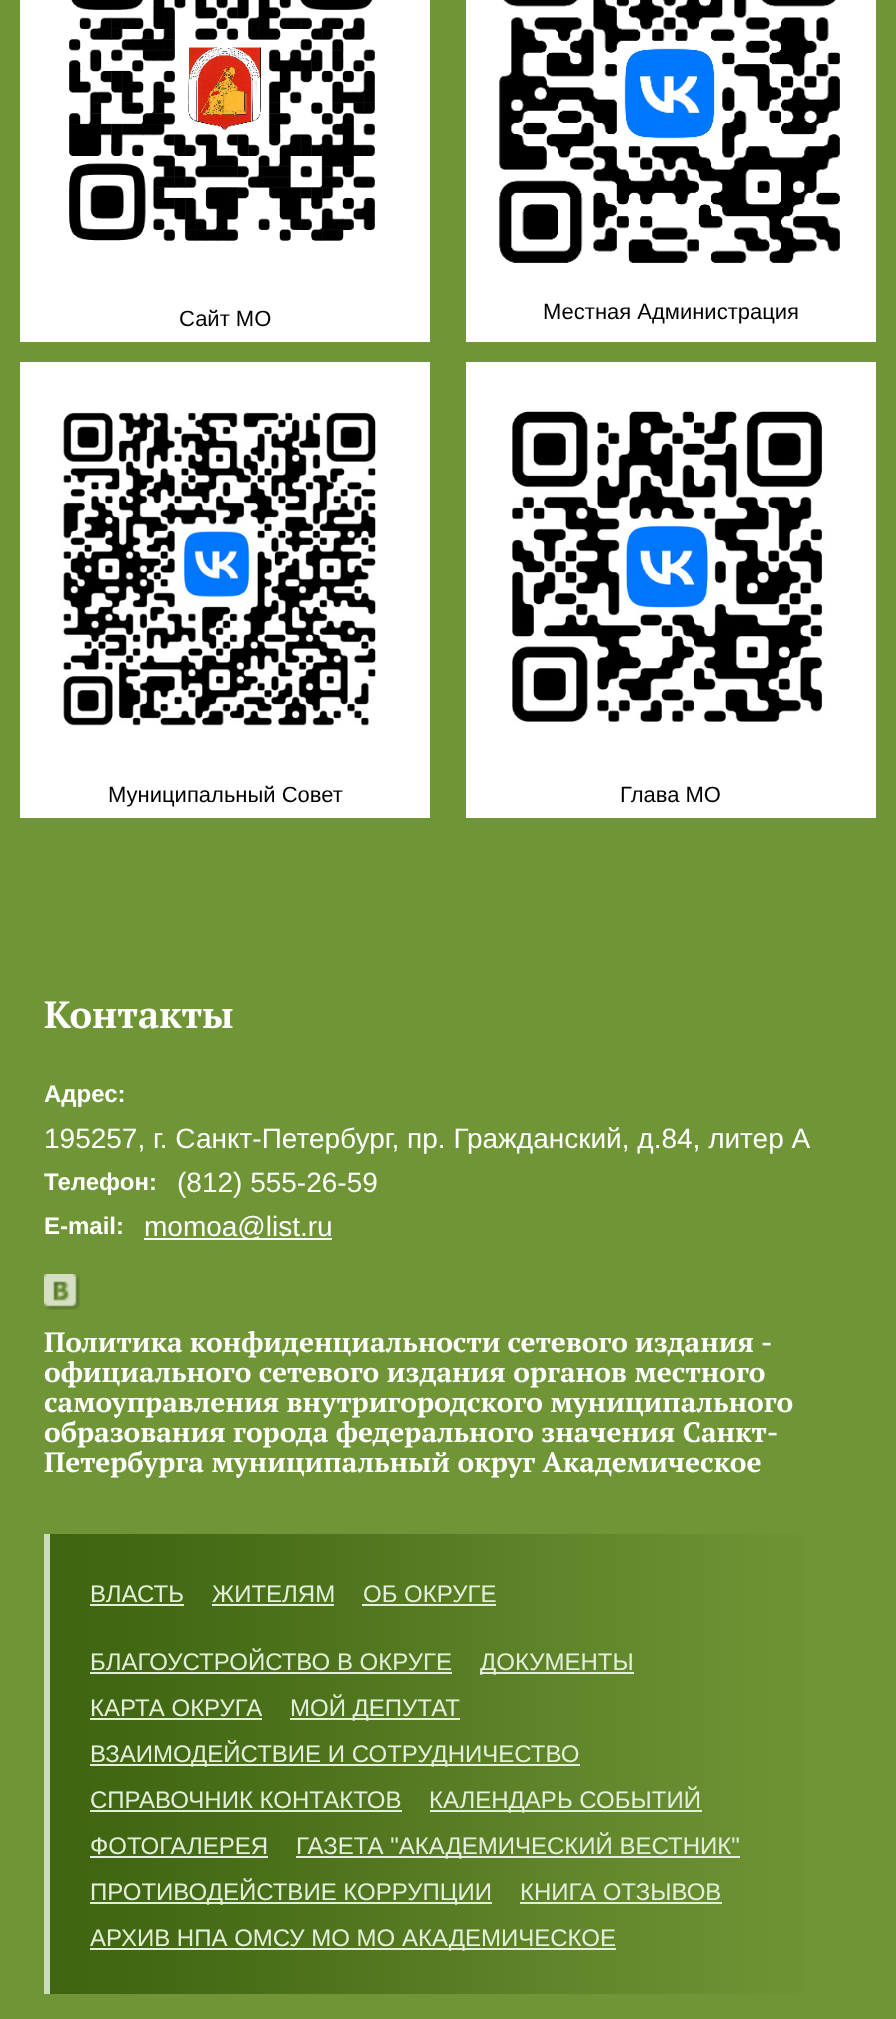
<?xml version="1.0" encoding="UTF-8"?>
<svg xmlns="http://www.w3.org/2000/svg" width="896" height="2019">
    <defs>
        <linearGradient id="g1" gradientUnits="userSpaceOnUse" x1="50" y1="1764" x2="852" y2="1764"><stop offset="0" stop-color="#3F6511"/><stop offset="0.09" stop-color="#416713"/><stop offset="0.2" stop-color="#466C17"/><stop offset="0.34" stop-color="#4E731C"/><stop offset="0.73" stop-color="#658A2E"/><stop offset="0.88" stop-color="#6C9133"/><stop offset="1" stop-color="#709436"/></linearGradient>
    </defs>
    <rect width="100%" height="100%" fill="#6F9536"/>
    <rect x="20" y="0" width="410" height="342" fill="#FFFFFF"/>
    <image x="69" y="0" width="306" height="241" href="img_01.png"/>
    <text x="179" y="326" font-family="Liberation Sans" font-size="22" fill="#000000">Сайт МО</text>
    <rect x="466" y="0" width="410" height="342" fill="#FFFFFF"/>
    <image x="499" y="0" width="341" height="263" href="img_02.png"/>
    <text x="543" y="319" font-family="Liberation Sans" font-size="22" fill="#000000">Местная Администрация</text>
    <rect x="20" y="362" width="410" height="456" fill="#FFFFFF"/>
    <image x="60" y="412" width="316" height="316" href="img_03.png"/>
    <text x="108" y="802" font-family="Liberation Sans" font-size="22" fill="#000000">Муниципальный Совет</text>
    <rect x="466" y="362" width="410" height="456" fill="#FFFFFF"/>
    <image x="512" y="409" width="314" height="313" href="img_04.png"/>
    <text x="620" y="802" font-family="Liberation Sans" font-size="22" fill="#000000">Глава МО</text>
    <text x="44" y="1028" font-family="PT Serif" font-size="38" font-weight="700" fill="#FFFFFF">Контакты</text>
    <text x="44" y="1102" font-family="Liberation Sans" font-size="24" font-weight="700" fill="#FFFFFF">Адрес:</text>
    <text x="44" y="1148" font-family="Liberation Sans" font-size="28" fill="#FFFFFF">195257, г. Санкт-Петербург, пр. Гражданский, д.84, литер А</text>
    <text x="44" y="1190" font-family="Liberation Sans" font-size="24" font-weight="700" fill="#FFFFFF">Телефон:</text>
    <text x="177" y="1192" font-family="Liberation Sans" font-size="28" fill="#FFFFFF">(812) 555-26-59</text>
    <text x="44" y="1234" font-family="Liberation Sans" font-size="24" font-weight="700" fill="#FFFFFF">E-mail:</text>
    <rect x="144" y="1238" width="188" height="2" fill="#FFFFFF"/>
    <text x="144" y="1236" font-family="Liberation Sans" font-size="28" fill="#FFFFFF">momoa@list.ru</text>
    <image x="44" y="1274" width="36" height="36" href="img_05.png"/>
    <text font-family="PT Serif" font-size="28" font-weight="700" fill="#FFFFFF">
        <tspan x="44" y="1352" word-spacing="-0.5">Политика конфиденциальности сетевого издания -</tspan>
        <tspan x="44" y="1382">официального сетевого издания органов местного</tspan>
        <tspan x="44" y="1412">самоуправления внутригородского муниципального</tspan>
        <tspan x="44" y="1442">образования города федерального значения Санкт-</tspan>
        <tspan x="44" y="1472">Петербурга муниципальный округ Академическое</tspan>
    </text>
    <rect x="50" y="1534" width="754" height="460" fill="url(#g1)"/>
    <rect x="44" y="1534" width="6" height="460" fill="#CBDCB8"/>
    <text x="90" y="1602" font-family="Liberation Sans" font-size="24" fill="#E4EFD9">ВЛАСТЬ</text>
    <rect x="90" y="1604" width="94" height="2" fill="#E4EFD9"/>
    <text x="212" y="1602" font-family="Liberation Sans" font-size="24" fill="#E4EFD9">ЖИТЕЛЯМ</text>
    <rect x="212" y="1604" width="122" height="2" fill="#E4EFD9"/>
    <text x="363" y="1602" font-family="Liberation Sans" font-size="24" fill="#E4EFD9">ОБ ОКРУГЕ</text>
    <rect x="362" y="1604" width="134" height="2" fill="#E4EFD9"/>
    <text x="90" y="1670" font-family="Liberation Sans" font-size="24" fill="#E4EFD9">БЛАГОУСТРОЙСТВО В ОКРУГЕ</text>
    <rect x="90" y="1672" width="362" height="2" fill="#E4EFD9"/>
    <rect x="480" y="1672" width="154" height="2" fill="#E4EFD9"/>
    <text x="480" y="1670" font-family="Liberation Sans" font-size="24" fill="#E4EFD9">ДОКУМЕНТЫ</text>
    <text x="90" y="1716" font-family="Liberation Sans" font-size="24" fill="#E4EFD9">КАРТА ОКРУГА</text>
    <rect x="90" y="1718" width="172" height="2" fill="#E4EFD9"/>
    <rect x="290" y="1718" width="170" height="2" fill="#E4EFD9"/>
    <text x="290" y="1716" font-family="Liberation Sans" font-size="24" fill="#E4EFD9">МОЙ ДЕПУТАТ</text>
    <rect x="90" y="1764" width="490" height="2" fill="#E4EFD9"/>
    <text font-family="Liberation Sans" font-size="24" fill="#E4EFD9">
        <tspan x="90" y="1762">ВЗАИМОДЕЙСТВИЕ И СОТРУДНИЧЕСТВО</tspan>
        <tspan x="90" y="1808">СПРАВОЧНИК КОНТАКТОВ</tspan>
    </text>
    <rect x="90" y="1810" width="312" height="2" fill="#E4EFD9"/>
    <rect x="430" y="1810" width="272" height="2" fill="#E4EFD9"/>
    <text x="429" y="1808" font-family="Liberation Sans" font-size="24" fill="#E4EFD9">КАЛЕНДАРЬ СОБЫТИЙ</text>
    <text x="90" y="1854" font-family="Liberation Sans" font-size="24" fill="#E4EFD9">ФОТОГАЛЕРЕЯ</text>
    <rect x="90" y="1856" width="178" height="2" fill="#E4EFD9"/>
    <rect x="296" y="1856" width="444" height="2" fill="#E4EFD9"/>
    <text x="296" y="1854" font-family="Liberation Sans" font-size="24" fill="#E4EFD9">ГАЗЕТА "АКАДЕМИЧЕСКИЙ ВЕСТНИК"</text>
    <rect x="90" y="1902" width="402" height="2" fill="#E4EFD9"/>
    <text x="90" y="1900" font-family="Liberation Sans" font-size="24" fill="#E4EFD9">ПРОТИВОДЕЙСТВИЕ КОРРУПЦИИ</text>
    <text x="520" y="1900" font-family="Liberation Sans" font-size="24" fill="#E4EFD9">КНИГА ОТЗЫВОВ</text>
    <rect x="520" y="1902" width="202" height="2" fill="#E4EFD9"/>
    <rect x="90" y="1948" width="526" height="2" fill="#E4EFD9"/>
    <text x="90" y="1946" font-family="Liberation Sans" font-size="24" fill="#E4EFD9">АРХИВ НПА ОМСУ МО МО АКАДЕМИЧЕСКОЕ</text>
</svg>
